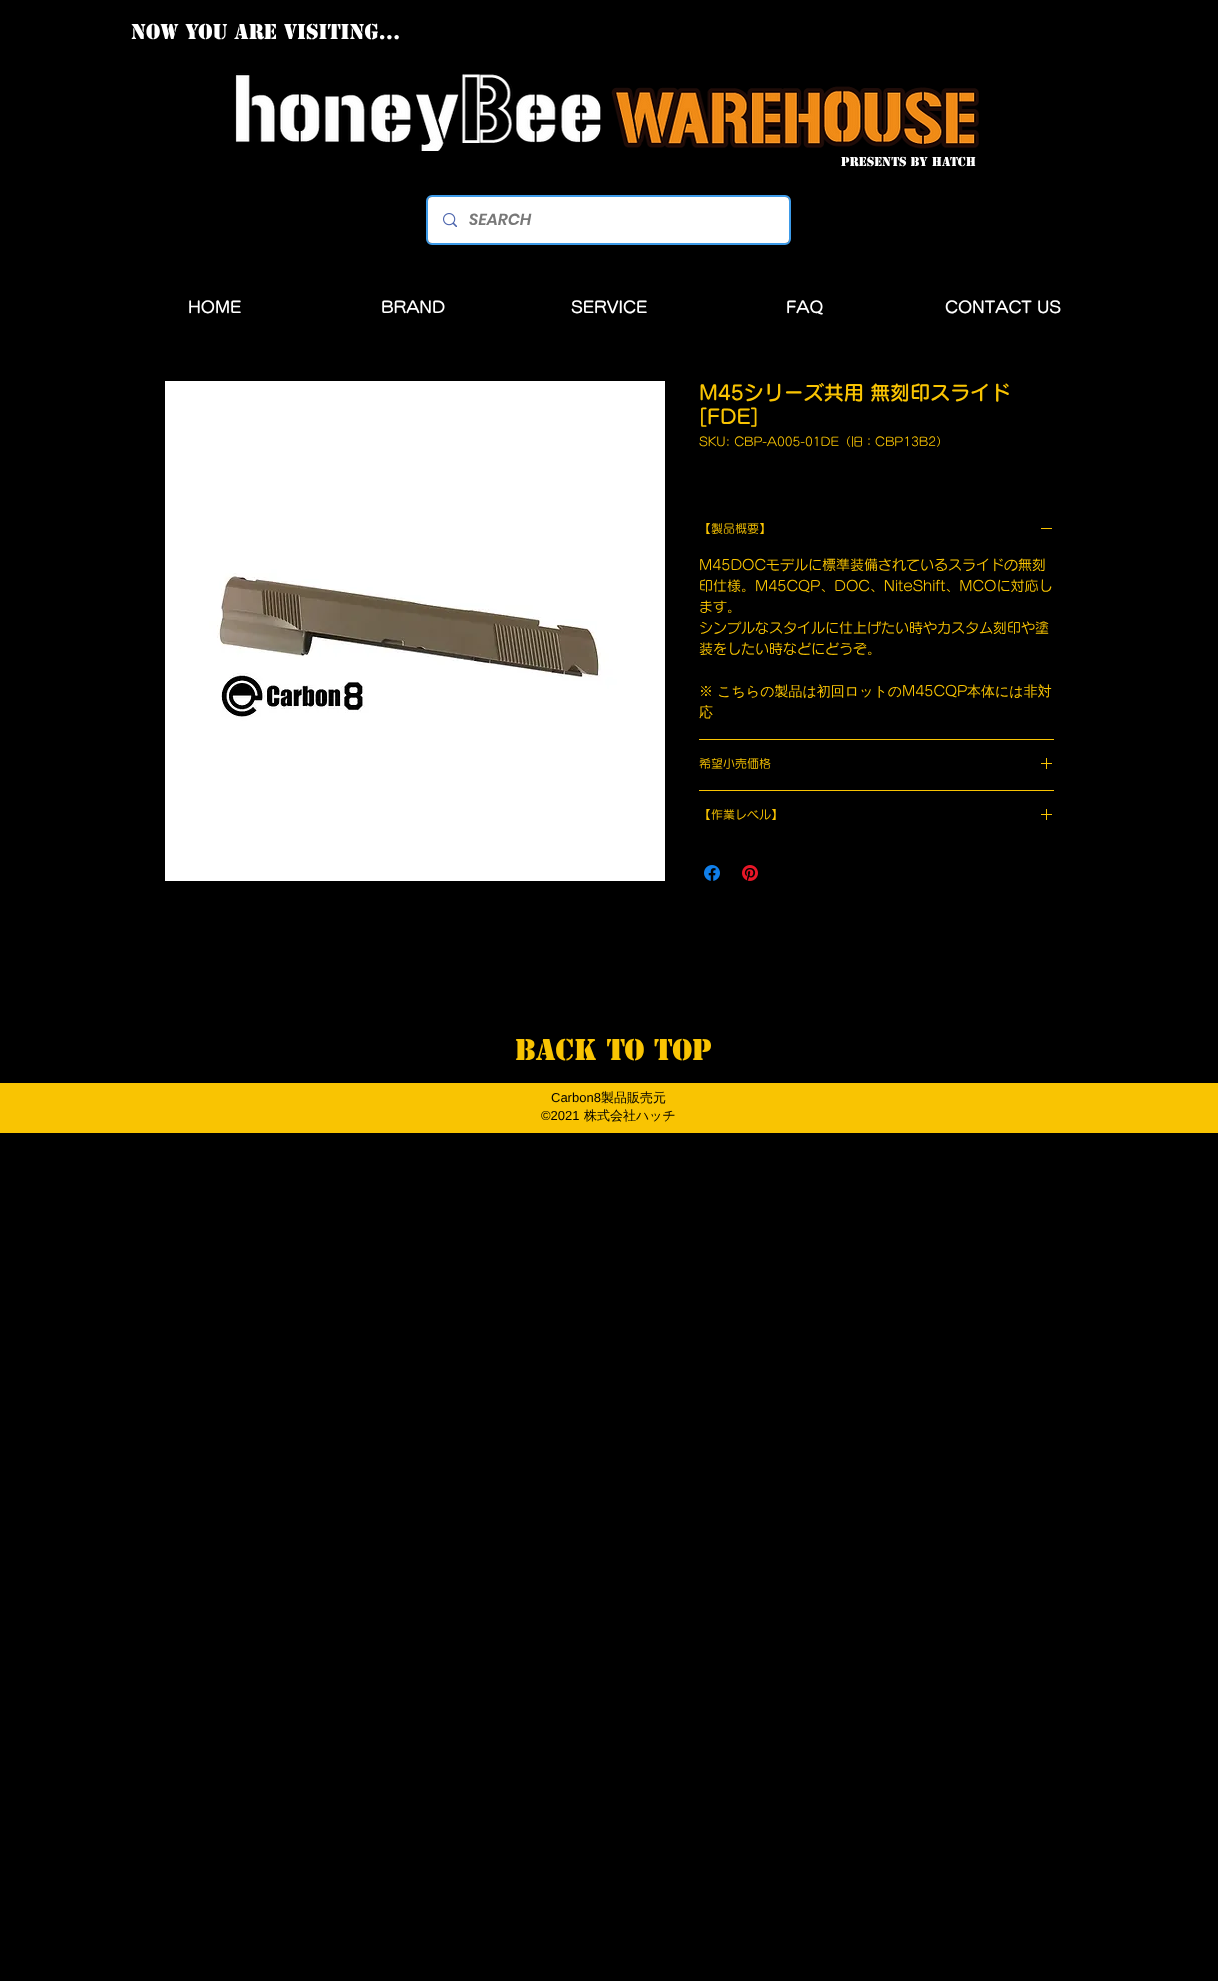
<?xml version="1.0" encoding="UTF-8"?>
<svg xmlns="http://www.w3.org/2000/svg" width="1218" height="1981">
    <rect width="100%" height="100%" fill="#000000"/>
    <text x="131" y="39" font-family="'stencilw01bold'" font-size="20" font-weight="700" fill="#FFFFFF">Now you are visiting...</text>
    <image x="235" y="73" width="744" height="78" href="img_01.png"/>
    <text x="841" y="166" font-family="'stencilw01bold'" font-size="12" font-weight="700" fill="#FFFFFF">presents by hatch</text>
    <rect x="427" y="196" width="363" height="48" rx="5" fill="none" stroke="#3D9BE9" stroke-width="2"/>
    <rect x="428" y="197" width="361" height="46" rx="4" fill="#FFFFFF"/>
    <image x="443" y="213" width="14" height="14" href="img_02.png"/>
    <text x="469" y="225" font-family="Poppins" font-size="16" font-weight="600" font-style="italic" fill="#787878">SEARCH</text>
    <text x="188" y="313" font-family="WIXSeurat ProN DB" font-size="16" font-weight="600" fill="#FFFFFF">HOME</text>
    <text x="381" y="313" font-family="WIXSeurat ProN DB" font-size="16" font-weight="600" fill="#FFFFFF">BRAND</text>
    <text x="571" y="313" font-family="WIXSeurat ProN DB" font-size="16" font-weight="600" fill="#FFFFFF">SERVICE</text>
    <text x="786" y="313" font-family="WIXSeurat ProN DB" font-size="16" font-weight="600" fill="#FFFFFF">FAQ</text>
    <text x="945" y="313" font-family="WIXSeurat ProN DB" font-size="16" font-weight="600" fill="#FFFFFF">CONTACT US</text>
    <image x="165" y="381" width="500" height="500" href="img_03.png"/>
    <text font-family="WIXSeurat ProN DB" font-size="20" font-weight="600" fill="#F9C402">
        <tspan x="699" y="400">M45シリーズ共用 無刻印スライド</tspan>
        <tspan x="699" y="424">[FDE]</tspan>
    </text>
    <text x="699" y="446" font-family="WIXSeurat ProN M" font-size="12" font-weight="500" fill="#F9C402">SKU: CBP-A005-01DE（旧：CBP13B2）</text>
    <rect x="699" y="739" width="355" height="1" fill="#F9C402"/>
    <text x="699" y="533" font-family="WIXSeurat ProN M" font-size="12" font-weight="500" fill="#F9C402">【製品概要】</text>
    <rect x="1041" y="528" width="11" height="1" fill="#F9C402"/>
    <text font-family="WIXSeurat ProN M" font-size="14" font-weight="500" fill="#F9C402">
        <tspan x="699" y="570">M45DOCモデルに標準装備されているスライドの無刻</tspan>
        <tspan x="699" y="591">印仕様。M45CQP、DOC、NiteShift、MCOに対応し</tspan>
        <tspan x="699" y="612">ます。</tspan>
        <tspan x="699" y="633">シンプルなスタイルに仕上げたい時やカスタム刻印や塗</tspan>
        <tspan x="699" y="654">装をしたい時などにどうぞ。</tspan>
    </text>
    <text x="699" y="696" font-family="WenQuanYi Zen Hei" font-size="14" font-weight="500" fill="#F9C402">※ こちらの製品は初回ロットの</text>
    <text x="902" y="696" font-family="WIXSeurat ProN M" font-size="14" font-weight="500" fill="#F9C402">M45CQP</text>
    <text x="967" y="696" font-family="WenQuanYi Zen Hei" font-size="14" font-weight="500" fill="#F9C402">本体には非対</text>
    <text x="699" y="717" font-family="WenQuanYi Zen Hei" font-size="14" font-weight="500" fill="#F9C402">応</text>
    <rect x="699" y="790" width="355" height="1" fill="#F9C402"/>
    <text x="699" y="768" font-family="WIXSeurat ProN M" font-size="12" font-weight="500" fill="#F9C402">希望小売価格</text>
    <image x="1041" y="758" width="11" height="11" href="img_04.png"/>
    <text x="699" y="819" font-family="WIXSeurat ProN M" font-size="12" font-weight="500" fill="#F9C402">【作業レベル】</text>
    <image x="1041" y="809" width="11" height="11" href="img_04.png"/>
    <image x="704" y="865" width="16" height="16" href="img_05.png"/>
    <image x="742" y="865" width="16" height="16" href="img_06.png"/>
    <text x="515" y="1060" font-family="'stencilw01bold'" font-size="28" font-weight="700" fill="#F9C402">back to TOP</text>
    <rect x="0" y="1083" width="1218" height="50" fill="#F9C402"/>
    <text x="551" y="1102" font-family="Liberation Sans" font-size="13" fill="#000000">Carbon8</text>
    <text x="601" y="1102" font-family="WenQuanYi Zen Hei" font-size="13" font-weight="500" fill="#000000">製品販売元</text>
    <text x="541" y="1120" font-family="Liberation Sans" font-size="13" fill="#000000">©2021</text>
    <text x="584" y="1120" font-family="WenQuanYi Zen Hei" font-size="13" font-weight="500" fill="#000000">株式会社ハッチ</text>
</svg>
